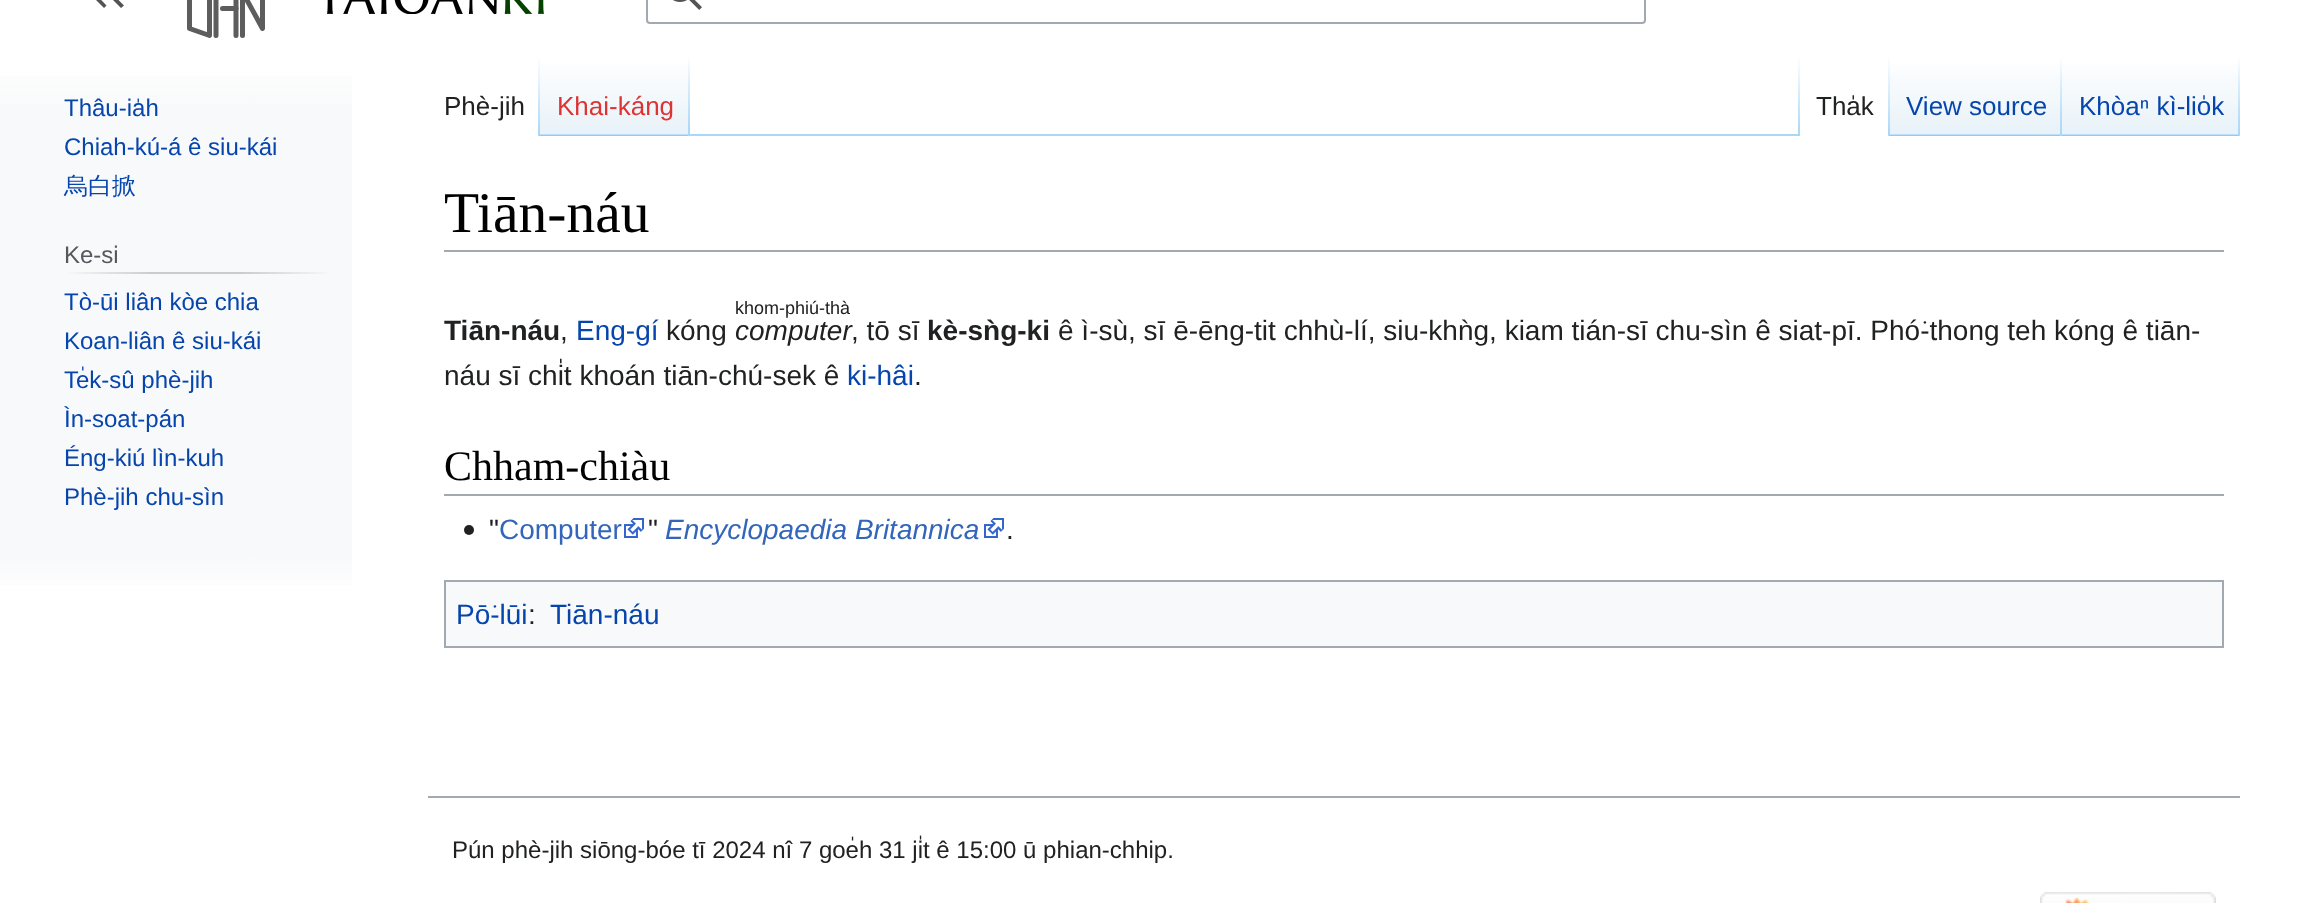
<?xml version="1.0" encoding="UTF-8"?>
<svg xmlns="http://www.w3.org/2000/svg" width="2299" height="903">
    <defs>
        <linearGradient id="g1" gradientUnits="userSpaceOnUse" x1="176" y1="56" x2="176" y2="606"><stop offset="0" stop-color="#FFFFFF"/><stop offset="0.1" stop-color="#F8F9FA"/><stop offset="0.9" stop-color="#F8F9FA"/><stop offset="1" stop-color="#FFFFFF"/></linearGradient>
        <linearGradient id="g2" gradientUnits="userSpaceOnUse" x1="64" y1="273" x2="332" y2="273"><stop offset="0" stop-color="#F8F9FA"/><stop offset="0.33" stop-color="#C8CCD1"/><stop offset="0.66" stop-color="#C8CCD1"/><stop offset="1" stop-color="#F8F9FA"/></linearGradient>
        <linearGradient id="g3" gradientUnits="userSpaceOnUse" x1="539" y1="56" x2="539" y2="136"><stop offset="0" stop-color="#FFFFFF"/><stop offset="1" stop-color="#A7D7F9"/></linearGradient>
        <linearGradient id="g4" gradientUnits="userSpaceOnUse" x1="615" y1="136" x2="615" y2="56"><stop offset="0" stop-color="#77C1F6"/><stop offset="0.03" stop-color="#E8F2F8"/><stop offset="1" stop-color="#FFFFFF"/></linearGradient>
        <linearGradient id="g5" gradientUnits="userSpaceOnUse" x1="689" y1="56" x2="689" y2="136"><stop offset="0" stop-color="#A7D7F9" stop-opacity="0"/><stop offset="1" stop-color="#A7D7F9"/></linearGradient>
        <linearGradient id="g6" gradientUnits="userSpaceOnUse" x1="1799" y1="56" x2="1799" y2="136"><stop offset="0" stop-color="#A7D7F9" stop-opacity="0"/><stop offset="1" stop-color="#A7D7F9"/></linearGradient>
        <linearGradient id="g7" gradientUnits="userSpaceOnUse" x1="1889" y1="56" x2="1889" y2="136"><stop offset="0" stop-color="#FFFFFF"/><stop offset="1" stop-color="#A7D7F9"/></linearGradient>
        <linearGradient id="g8" gradientUnits="userSpaceOnUse" x1="1976" y1="136" x2="1976" y2="56"><stop offset="0" stop-color="#77C1F6"/><stop offset="0.03" stop-color="#E8F2F8"/><stop offset="1" stop-color="#FFFFFF"/></linearGradient>
        <linearGradient id="g9" gradientUnits="userSpaceOnUse" x1="2061" y1="56" x2="2061" y2="136"><stop offset="0" stop-color="#A7D7F9" stop-opacity="0"/><stop offset="1" stop-color="#A7D7F9"/></linearGradient>
        <linearGradient id="g10" gradientUnits="userSpaceOnUse" x1="2151" y1="136" x2="2151" y2="56"><stop offset="0" stop-color="#77C1F6"/><stop offset="0.03" stop-color="#E8F2F8"/><stop offset="1" stop-color="#FFFFFF"/></linearGradient>
        <linearGradient id="g11" gradientUnits="userSpaceOnUse" x1="2239" y1="56" x2="2239" y2="136"><stop offset="0" stop-color="#A7D7F9" stop-opacity="0"/><stop offset="1" stop-color="#A7D7F9"/></linearGradient>
    </defs>
    <rect width="100%" height="100%" fill="#FFFFFF"/>
    <path d="M 104 -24 L 106.5 -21.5 L 93.5 -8 L 106.5 5.5 L 104 8 L 88 -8 Z M 121 -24 L 124 -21.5 L 110.5 -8 L 124 5.5 L 121 8 L 105 -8 Z" fill="#545454"/>
    <path d="M 189.5 -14.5 V 28.5 L 209.5 35.5 V -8 Z M 216 35.5 V -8 H 236 V 35.5" fill="none" stroke="#5D5D5D" stroke-width="5" stroke-linecap="round" stroke-linejoin="round"/>
    <path d="M 242.5 35.5 V -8 L 262.5 28.5 V -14.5 M 222.5 8.5 H 236" fill="none" stroke="#5D5D5D" stroke-width="5" stroke-linecap="round" stroke-linejoin="round"/>
    <image x="327" y="0" width="217" height="14" href="img_01.png"/>
    <rect x="647" y="-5" width="998" height="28" rx="3" fill="none" stroke="#A2A9B1" stroke-width="2"/>
    <image x="673" y="0" width="29" height="10" href="img_02.png"/>
    <rect x="0" y="76" width="352" height="510" fill="url(#g1)"/>
    <text font-family="Liberation Sans" font-size="24" fill="#0645AD">
        <tspan x="64" y="116">Thâu-ia̍h</tspan>
        <tspan x="64" y="155">Chiah-kú-á ê siu-kái</tspan>
    </text>
    <text x="64" y="194" font-family="WenQuanYi Zen Hei" font-size="24" font-weight="500" fill="#0645AD">烏白掀</text>
    <rect x="64" y="272" width="268" height="2" fill="url(#g2)"/>
    <text x="64" y="263" font-family="Liberation Sans" font-size="24" fill="#54595D">Ke-si</text>
    <text font-family="Liberation Sans" font-size="24" fill="#0645AD">
        <tspan x="64" y="310">Tò-ūi liân kòe chia</tspan>
        <tspan x="64" y="349">Koan-liân ê siu-kái</tspan>
        <tspan x="64" y="388">Te̍k-sû phè-jih</tspan>
        <tspan x="64" y="427">Ìn-soat-pán</tspan>
        <tspan x="64" y="466">Éng-kiú lìn-kuh</tspan>
        <tspan x="64" y="505">Phè-jih chu-sìn</tspan>
    </text>
    <rect x="538" y="56" width="2" height="80" fill="url(#g3)"/>
    <text x="444" y="115" font-family="Liberation Sans" font-size="26" fill="#202122">Phè-jih</text>
    <rect x="540" y="64" width="150" height="72" fill="url(#g4)"/>
    <rect x="688" y="56" width="2" height="80" fill="url(#g5)"/>
    <text x="557" y="115" font-family="Liberation Sans" font-size="26" fill="#DD3333">Khai-káng</text>
    <rect x="690" y="134" width="1110" height="2" fill="#A7D7F9"/>
    <rect x="1798" y="56" width="2" height="80" fill="url(#g6)"/>
    <rect x="1888" y="56" width="2" height="80" fill="url(#g7)"/>
    <text x="1816" y="115" font-family="Liberation Sans" font-size="26" fill="#202122">Tha̍k</text>
    <rect x="1890" y="64" width="172" height="72" fill="url(#g8)"/>
    <rect x="2060" y="56" width="2" height="80" fill="url(#g9)"/>
    <text x="1906" y="115" font-family="Liberation Sans" font-size="26" fill="#0645AD">View source</text>
    <rect x="2062" y="64" width="178" height="72" fill="url(#g10)"/>
    <rect x="2238" y="56" width="2" height="80" fill="url(#g11)"/>
    <text x="2079" y="115" font-family="Liberation Sans" font-size="26" fill="#0645AD">Khòaⁿ kì-lio̍k</text>
    <rect x="444" y="250" width="1780" height="2" fill="#A2A9B1"/>
    <text x="444" y="232" font-family="Liberation Serif" font-size="57.5" fill="#000000">Tiān-náu</text>
    <text x="444" y="340" font-family="Liberation Sans" font-size="28" font-weight="700" fill="#202122">Tiān-náu</text>
    <text x="560" y="340" font-family="Liberation Sans" font-size="28" fill="#202122">,</text>
    <text x="576" y="340" font-family="Liberation Sans" font-size="28" fill="#0645AD">Eng-gí</text>
    <text x="666" y="340" font-family="Liberation Sans" font-size="28" fill="#202122">kóng</text>
    <text x="735" y="314" font-family="Liberation Sans" font-size="18" fill="#202122">khom-phiú-thà</text>
    <text x="735" y="340" font-family="Liberation Sans" font-size="28" font-style="italic" fill="#202122">computer</text>
    <text x="851" y="340" font-family="Liberation Sans" font-size="28" fill="#202122">, tō sī</text>
    <text x="927" y="340" font-family="Liberation Sans" font-size="28" font-weight="700" fill="#202122">kè-sǹg-ki</text>
    <text x="1058" y="340" font-family="Liberation Sans" font-size="28" fill="#202122">ê ì-sù, sī ē-ēng-tit chhù-lí, siu-khǹg, kiam tián-sī chu-sìn ê siat-pī. Phó͘-thong teh kóng ê tiān-</text>
    <text x="444" y="385" font-family="Liberation Sans" font-size="28" fill="#202122">náu sī chi̍t khoán tiān-chú-sek ê</text>
    <text x="847" y="385" font-family="Liberation Sans" font-size="28" fill="#0645AD">ki-hâi</text>
    <text x="914" y="385" font-family="Liberation Sans" font-size="28" fill="#202122">.</text>
    <rect x="444" y="494" width="1780" height="2" fill="#A2A9B1"/>
    <text x="444" y="480" font-family="Liberation Serif" font-size="42" fill="#000000">Chham-chiàu</text>
    <image x="464" y="525" width="10" height="10" href="img_03.png"/>
    <text x="489" y="539" font-family="Liberation Sans" font-size="28" fill="#202122">"</text>
    <text x="499" y="539" font-family="Liberation Sans" font-size="28" fill="#3366BB">Computer</text>
    <image x="624" y="518" width="20" height="20" href="img_04.png"/>
    <text x="648" y="539" font-family="Liberation Sans" font-size="28" fill="#202122">"</text>
    <text x="665" y="539" font-family="Liberation Sans" font-size="28" font-style="italic" fill="#3366BB">Encyclopaedia Britannica</text>
    <image x="984" y="518" width="20" height="20" href="img_04.png"/>
    <text x="1006" y="539" font-family="Liberation Sans" font-size="28" fill="#202122">.</text>
    <rect x="445" y="581" width="1778" height="66" fill="#F8F9FA" stroke="#A2A9B1" stroke-width="2"/>
    <text x="456" y="624" font-family="Liberation Sans" font-size="28" fill="#0645AD">Pō͘-lūi</text>
    <text x="528" y="624" font-family="Liberation Sans" font-size="28" fill="#202122">:</text>
    <text x="550" y="624" font-family="Liberation Sans" font-size="28" fill="#0645AD">Tiān-náu</text>
    <rect x="428" y="796" width="1812" height="2" fill="#A2A9B1"/>
    <text x="452" y="858" font-family="Liberation Sans" font-size="24" fill="#202122">Pún phè-jih siōng-bóe tī 2024 nî 7 goe̍h 31 ji̍t ê 15:00 ū phian-chhip.</text>
    <image x="2040" y="892" width="176" height="11" href="img_05.png"/>
</svg>
